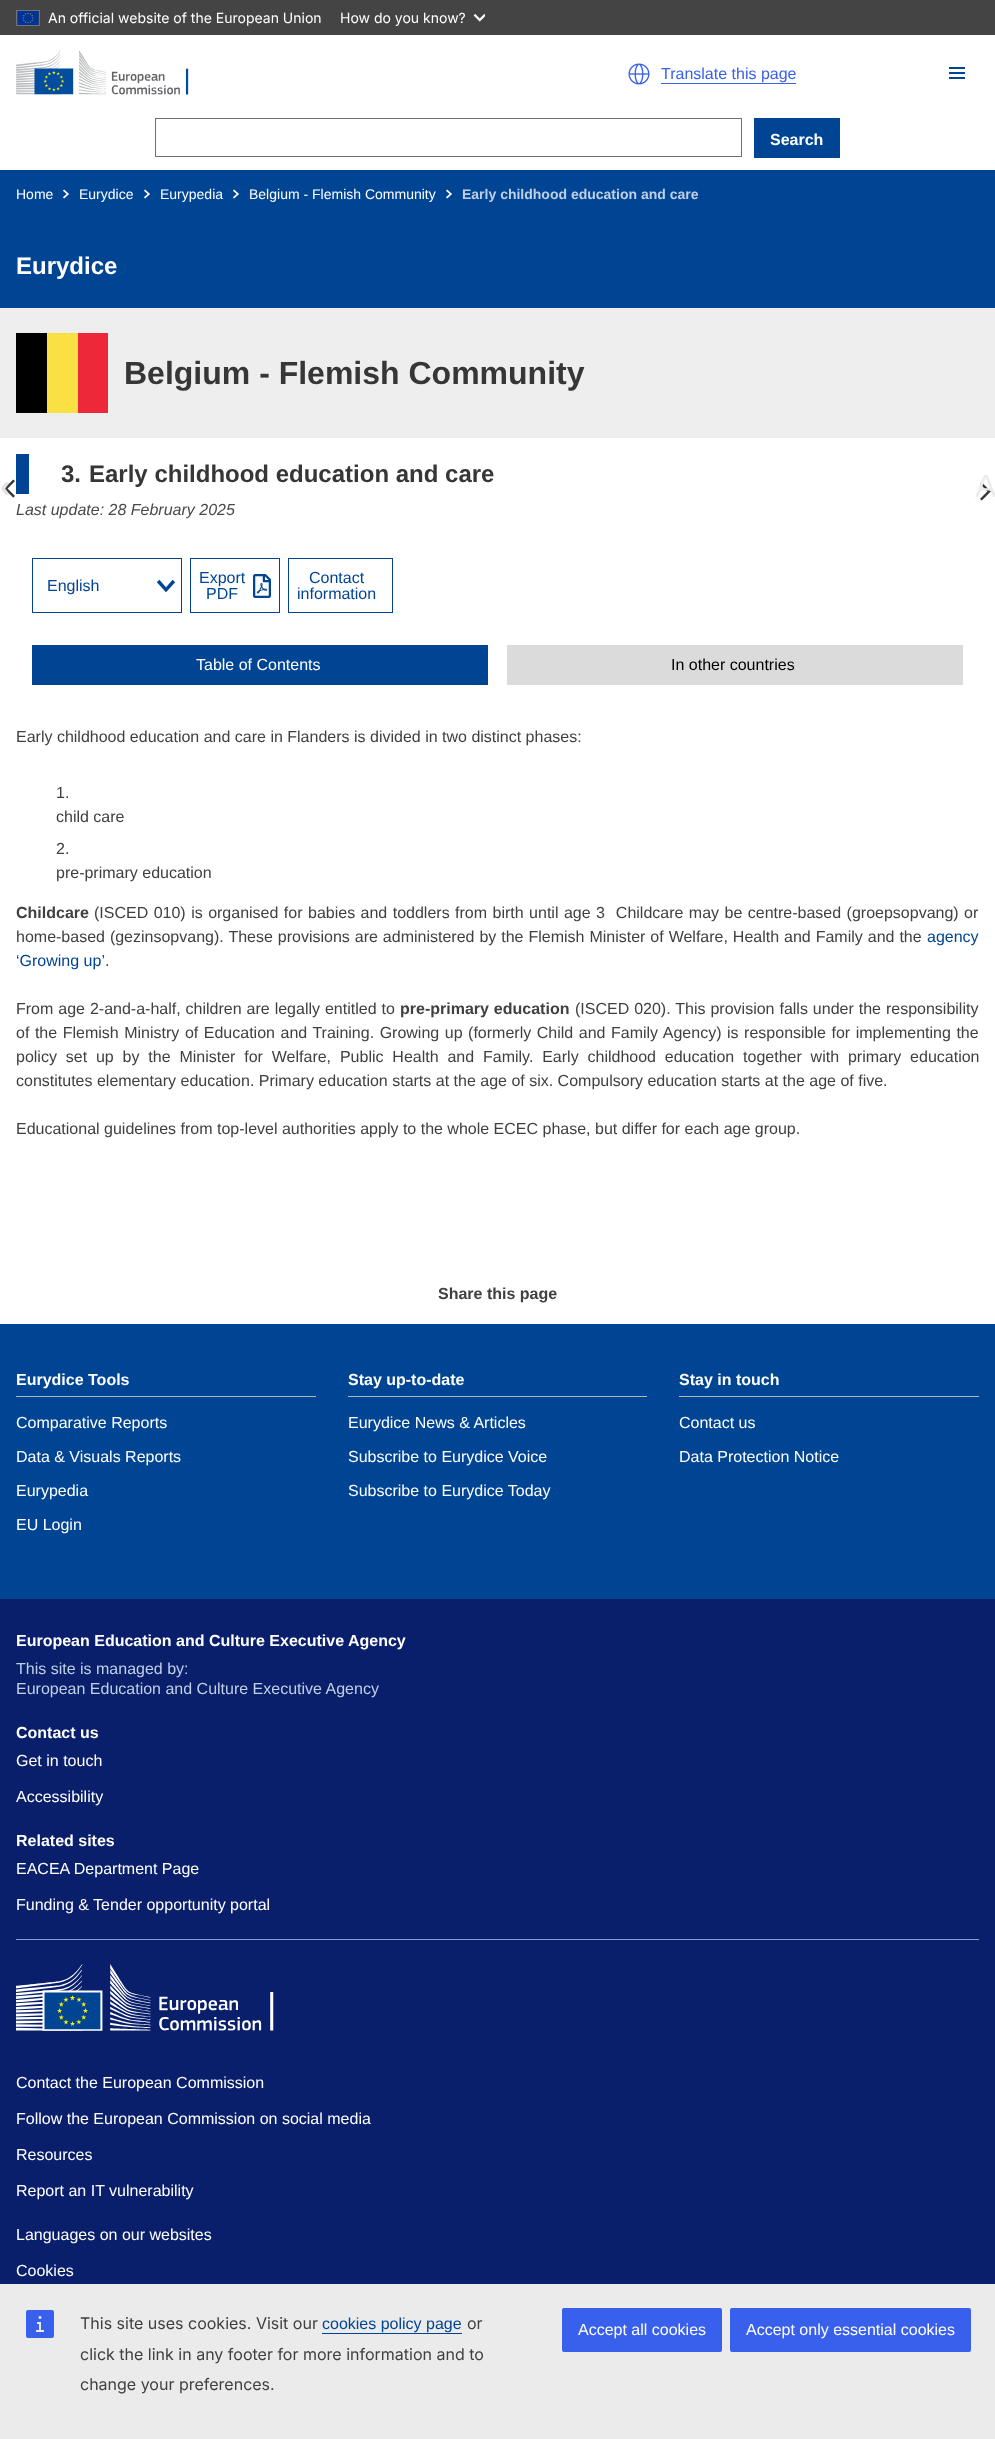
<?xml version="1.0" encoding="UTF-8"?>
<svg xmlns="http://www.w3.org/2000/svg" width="995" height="2439">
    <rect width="100%" height="100%" fill="#FFFFFF"/>
    <rect x="0" y="0" width="995" height="35" fill="#444444"/>
    <rect x="16.5" y="10.5" width="23" height="15" fill="none" stroke="#737373"/>
    <image x="18" y="11" width="21" height="14" href="img_01.png"/>
    <text x="48" y="23" font-family="Inter" font-size="14" fill="#FFFFFF">An official website of the European Union</text>
    <text x="340" y="23" font-family="Inter" font-size="14" fill="#FFFFFF">How do you know?</text>
    <image x="473" y="14" width="12" height="8" href="img_02.png"/>
    <image x="16" y="50" width="173" height="45" href="img_03.png"/>
    <image x="628" y="63" width="22" height="22" href="img_04.png"/>
    <text x="661" y="79" font-family="Liberation Sans" font-size="16" fill="#3860ED">Translate this page</text>
    <rect x="661" y="83" width="135" height="1" fill="#3860ED"/>
    <rect x="949" y="67" width="16" height="2" fill="#004594"/>
    <rect x="949" y="72" width="16" height="2" fill="#004594"/>
    <rect x="949" y="77" width="16" height="2" fill="#004594"/>
    <rect x="155.5" y="118.5" width="586" height="38" fill="none" stroke="#707070"/>
    <rect x="754" y="118" width="86" height="40" fill="#004494"/>
    <text x="770" y="145" font-family="Liberation Sans" font-size="16" font-weight="700" fill="#FFFFFF">Search</text>
    <rect x="0" y="170" width="995" height="138" fill="#004494"/>
    <text x="16" y="199" font-family="Liberation Sans" font-size="14" fill="#FFFFFF">Home</text>
    <image x="63" y="189" width="6" height="10" href="img_05.png"/>
    <text x="79" y="199" font-family="Liberation Sans" font-size="14" fill="#FFFFFF">Eurydice</text>
    <image x="144" y="189" width="6" height="10" href="img_05.png"/>
    <text x="160" y="199" font-family="Liberation Sans" font-size="14" fill="#FFFFFF">Eurypedia</text>
    <image x="233" y="189" width="6" height="10" href="img_05.png"/>
    <text x="249" y="199" font-family="Liberation Sans" font-size="14" fill="#FFFFFF">Belgium - Flemish Community</text>
    <image x="446" y="189" width="6" height="10" href="img_05.png"/>
    <text x="462" y="199" font-family="Liberation Sans" font-size="14" font-weight="700" fill="#BFD0E4">Early childhood education and care</text>
    <text x="16" y="274" font-family="Liberation Sans" font-size="24" font-weight="700" fill="#FFFFFF">Eurydice</text>
    <rect x="0" y="308" width="995" height="130" fill="#EEEEEE"/>
    <rect x="78" y="333" width="30" height="80" fill="#ED2939"/>
    <rect x="47" y="333" width="31" height="80" fill="#FAE042"/>
    <rect x="16" y="333" width="31" height="80" fill="#000000"/>
    <text x="124" y="384" font-family="Liberation Sans" font-size="32" font-weight="700" fill="#363636">Belgium - Flemish Community</text>
    <rect x="16" y="454" width="13" height="40" fill="#004594"/>
    <text x="61" y="482" font-family="Liberation Sans" font-size="24" font-weight="700" fill="#363636">3.</text>
    <text x="89" y="482" font-family="Liberation Sans" font-size="24" font-weight="700" fill="#363636">Early childhood education and care</text>
    <text x="16" y="515" font-family="Liberation Sans" font-size="16" font-style="italic" fill="#4A4A4A">Last update: 28 February 2025</text>
    <image x="4" y="479" width="11" height="19" href="img_06.png"/>
    <text x="0" y="497" font-family="Liberation Sans" font-size="32" font-weight="700" fill="#E3E3E3">‹</text>
    <image x="980" y="482" width="11" height="19" href="img_07.png"/>
    <text x="975" y="497" font-family="Liberation Sans" font-size="32" fill="#ECECEC">A</text>
    <text x="16" y="742" font-family="Liberation Sans" font-size="16" fill="#404040">Early childhood education and care in Flanders is divided in two distinct phases:</text>
    <text font-family="Liberation Sans" font-size="16" fill="#404040">
        <tspan x="56" y="798">1.</tspan>
        <tspan x="56" y="822">child care</tspan>
    </text>
    <text font-family="Liberation Sans" font-size="16" fill="#404040">
        <tspan x="56" y="854">2.</tspan>
        <tspan x="56" y="878">pre-primary education</tspan>
    </text>
    <text x="16" y="918" font-family="Liberation Sans" font-size="16" font-weight="700" fill="#404040">Childcare</text>
    <text x="94" y="918" word-spacing="1" font-family="Liberation Sans" font-size="16" fill="#404040" xml:space="preserve">(ISCED 010) is organised for babies and toddlers from birth until age 3  Childcare may be centre-based (groepsopvang) or</text>
    <text x="16" y="942" word-spacing="0.5" font-family="Liberation Sans" font-size="16" fill="#404040">home-based (gezinsopvang). These provisions are administered by the Flemish Minister of Welfare, Health and Family and the</text>
    <text x="927" y="942" font-family="Liberation Sans" font-size="16" fill="#004494">agency</text>
    <text x="16" y="966" font-family="Liberation Sans" font-size="16" fill="#004494">‘Growing up’</text>
    <text x="105" y="966" font-family="Liberation Sans" font-size="16" fill="#404040">.</text>
    <text x="16" y="1014" word-spacing="0.5" font-family="Liberation Sans" font-size="16" fill="#404040">From age 2-and-a-half, children are legally entitled to</text>
    <text x="400" y="1014" word-spacing="0.5" font-family="Liberation Sans" font-size="16" font-weight="700" fill="#404040">pre-primary education</text>
    <text x="575" y="1014" word-spacing="0.5" font-family="Liberation Sans" font-size="16" fill="#404040">(ISCED 020). This provision falls under the responsibility</text>
    <text font-family="Liberation Sans" font-size="16" fill="#404040">
        <tspan x="16" y="1038" word-spacing="1.1">of the Flemish Ministry of Education and Training. Growing up (formerly Child and Family Agency) is responsible for implementing the</tspan>
        <tspan x="16" y="1062" word-spacing="4.4">policy set up by the Minister for Welfare, Public Health and Family. Early childhood education together with primary education</tspan>
        <tspan x="16" y="1086">constitutes elementary education. Primary education starts at the age of six. Compulsory education starts at the age of five.</tspan>
    </text>
    <text x="16" y="1134" font-family="Liberation Sans" font-size="16" fill="#404040">Educational guidelines from top-level authorities apply to the whole ECEC phase, but differ for each age group.</text>
    <image x="157" y="579" width="19" height="14" href="img_08.png"/>
    <rect x="32.5" y="558.5" width="149" height="54" fill="none" stroke="#004594"/>
    <text x="47" y="591" font-family="Liberation Sans" font-size="16" fill="#004494">English</text>
    <rect x="190.5" y="558.5" width="89" height="54" fill="none" stroke="#004594"/>
    <text x="199" y="583" font-family="Liberation Sans" font-size="16" fill="#004494">Export</text>
    <text x="206" y="599" font-family="Liberation Sans" font-size="16" fill="#004494">PDF</text>
    <image x="253" y="574" width="18" height="24" href="img_09.png"/>
    <rect x="288.5" y="558.5" width="104" height="54" fill="none" stroke="#004594"/>
    <text x="309" y="583" font-family="Liberation Sans" font-size="16" fill="#004494">Contact</text>
    <text x="297" y="599" font-family="Liberation Sans" font-size="16" fill="#004494">information</text>
    <rect x="32" y="645" width="456" height="40" fill="#004594"/>
    <text x="196" y="670" font-family="Liberation Sans" font-size="16" fill="#FFFFFF">Table of Contents</text>
    <rect x="507" y="645" width="456" height="40" fill="#DBDBDB"/>
    <text x="671" y="670" font-family="Liberation Sans" font-size="16" fill="#000000">In other countries</text>
    <text x="438" y="1299" font-family="Liberation Sans" font-size="16" font-weight="700" fill="#404040">Share this page</text>
    <rect x="0" y="1324" width="995" height="275" fill="#004594"/>
    <rect x="16" y="1396" width="300" height="1" fill="#B5B5B5"/>
    <text x="16" y="1385" font-family="Liberation Sans" font-size="16" font-weight="700" fill="#FFFFFF">Eurydice Tools</text>
    <text x="16" y="1428" font-family="Liberation Sans" font-size="16" fill="#FFFFFF">Comparative Reports</text>
    <text x="16" y="1462" font-family="Liberation Sans" font-size="16" fill="#FFFFFF">Data &amp; Visuals Reports</text>
    <text x="16" y="1496" font-family="Liberation Sans" font-size="16" fill="#FFFFFF">Eurypedia</text>
    <text x="16" y="1530" font-family="Liberation Sans" font-size="16" fill="#FFFFFF">EU Login</text>
    <rect x="348" y="1396" width="299" height="1" fill="#B5B5B5"/>
    <text x="348" y="1385" font-family="Liberation Sans" font-size="16" font-weight="700" fill="#FFFFFF">Stay up-to-date</text>
    <text x="348" y="1428" font-family="Liberation Sans" font-size="16" fill="#FFFFFF">Eurydice News &amp; Articles</text>
    <text x="348" y="1462" font-family="Liberation Sans" font-size="16" fill="#FFFFFF">Subscribe to Eurydice Voice</text>
    <text x="348" y="1496" font-family="Liberation Sans" font-size="16" fill="#FFFFFF">Subscribe to Eurydice Today</text>
    <rect x="679" y="1396" width="300" height="1" fill="#B5B5B5"/>
    <text x="679" y="1385" font-family="Liberation Sans" font-size="16" font-weight="700" fill="#FFFFFF">Stay in touch</text>
    <text x="679" y="1428" font-family="Liberation Sans" font-size="16" fill="#FFFFFF">Contact us</text>
    <text x="679" y="1462" font-family="Liberation Sans" font-size="16" fill="#FFFFFF">Data Protection Notice</text>
    <rect x="0" y="1599" width="995" height="685" fill="#0A1F6C"/>
    <rect x="16" y="1939" width="963" height="1" fill="#7FA1C9"/>
    <text x="16" y="1646" font-family="Liberation Sans" font-size="16" font-weight="700" fill="#FFFFFF">European Education and Culture Executive Agency</text>
    <text font-family="Liberation Sans" font-size="16" fill="#BFD0E4">
        <tspan x="16" y="1674">This site is managed by:</tspan>
        <tspan x="16" y="1694">European Education and Culture Executive Agency</tspan>
    </text>
    <text x="16" y="1738" font-family="Liberation Sans" font-size="16" font-weight="700" fill="#FFFFFF">Contact us</text>
    <text x="16" y="1766" font-family="Liberation Sans" font-size="16" fill="#FFFFFF">Get in touch</text>
    <text x="16" y="1802" font-family="Liberation Sans" font-size="16" fill="#FFFFFF">Accessibility</text>
    <text x="16" y="1846" font-family="Liberation Sans" font-size="16" font-weight="700" fill="#FFFFFF">Related sites</text>
    <text x="16" y="1874" font-family="Liberation Sans" font-size="16" fill="#FFFFFF">EACEA Department Page</text>
    <text x="16" y="1910" font-family="Liberation Sans" font-size="16" fill="#FFFFFF">Funding &amp; Tender opportunity portal</text>
    <image x="16" y="1964" width="258" height="67" href="img_10.png"/>
    <text x="16" y="2088" font-family="Liberation Sans" font-size="16" fill="#FFFFFF">Contact the European Commission</text>
    <text x="16" y="2124" font-family="Liberation Sans" font-size="16" fill="#FFFFFF">Follow the European Commission on social media</text>
    <text x="16" y="2160" font-family="Liberation Sans" font-size="16" fill="#FFFFFF">Resources</text>
    <text x="16" y="2196" font-family="Liberation Sans" font-size="16" fill="#FFFFFF">Report an IT vulnerability</text>
    <text x="16" y="2240" font-family="Liberation Sans" font-size="16" fill="#FFFFFF">Languages on our websites</text>
    <text x="16" y="2276" font-family="Liberation Sans" font-size="16" fill="#FFFFFF">Cookies</text>
    <rect x="0" y="2284" width="995" height="155" fill="#EBEBEB"/>
    <image x="26" y="2310" width="28" height="28" href="img_11.png"/>
    <text x="80" y="2329" font-family="Inter" font-size="16" fill="#404040">This site uses cookies. Visit our</text>
    <text x="322" y="2329" font-family="Liberation Sans" font-size="16" fill="#004494">cookies policy page</text>
    <rect x="322" y="2333" width="140" height="1" fill="#004494"/>
    <text x="467" y="2329" font-family="Inter" font-size="16" fill="#404040">or</text>
    <text font-family="Inter" font-size="16" fill="#404040">
        <tspan x="80" y="2360">click the link in any footer for more information and to</tspan>
        <tspan x="80" y="2390">change your preferences.</tspan>
    </text>
    <rect x="562" y="2308" width="160" height="44" rx="2" fill="#3860ED"/>
    <text x="578" y="2335" font-family="Liberation Sans" font-size="16" fill="#FFFFFF">Accept all cookies</text>
    <rect x="730" y="2308" width="241" height="44" rx="2" fill="#3860ED"/>
    <text x="746" y="2335" font-family="Liberation Sans" font-size="16" fill="#FFFFFF">Accept only essential cookies</text>
</svg>
